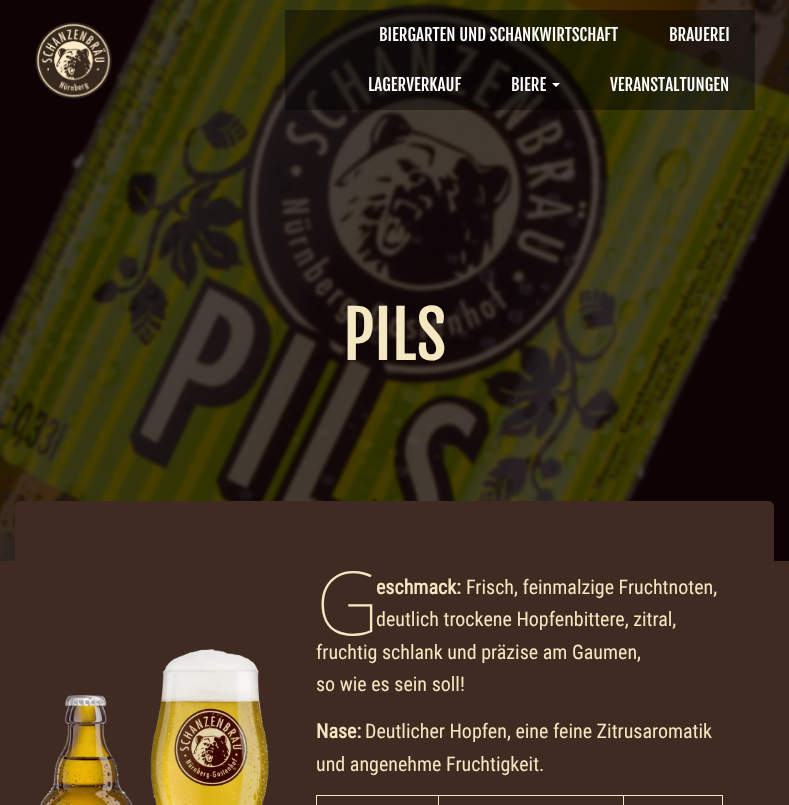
<?xml version="1.0" encoding="UTF-8"?>
<svg xmlns="http://www.w3.org/2000/svg" width="789" height="805">
    <defs>
        <filter id="blur1" x="-50%" y="-200%" width="200%" height="500%"><feGaussianBlur stdDeviation="5"/></filter>
    </defs>
    <rect width="100%" height="100%" fill="#3F2B22"/>
    <image x="0" y="0" width="789" height="561" href="img_02.png"/>
    <image x="35" y="22" width="77" height="77" href="img_01.png"/>
    <rect x="285" y="10" width="470" height="100" fill="#000000" fill-opacity="0.4"/>
    <text x="379" y="41" font-family="Fjalla One" font-size="16.75" fill="#FFFFFF">BIERGARTEN UND SCHANKWIRTSCHAFT</text>
    <text x="669" y="41" font-family="Fjalla One" font-size="16.75" fill="#FFFFFF">BRAUEREI</text>
    <text x="368" y="91" font-family="Fjalla One" font-size="16.75" fill="#FFFFFF">LAGERVERKAUF</text>
    <text x="511" y="91" font-family="Fjalla One" font-size="16.75" fill="#FFFFFF">BIERE</text>
    <path d="M 552 83 H 560 L 556 87 Z" fill="#FFFFFF"/>
    <text x="610" y="91" font-family="Fjalla One" font-size="16.75" fill="#FFFFFF">VERANSTALTUNGEN</text>
    <text x="343" y="360" font-family="Fjalla One" font-size="65" fill="#F4E7C1">PILS</text>
    <rect x="20" y="514" width="749" height="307" rx="1" fill="#000000" fill-opacity="0.2" filter="url(#blur1)"/>
    <path d="M 21 501 H 768 C 771.5 501 774 503.5 774 507 V 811 H 15 V 507 C 15 503.5 17.5 501 21 501 Z" fill="#3F2B22"/>
    <image x="40" y="649" width="229" height="156" href="img_03.png"/>
    <text x="316" y="635" font-family="Noto Sans" font-size="88" font-weight="100" fill="#F4E7C1">G</text>
    <text x="376" y="594" font-family="Roboto Condensed" font-size="20" font-weight="700" fill="#F4E7C1">eschmack:</text>
    <text x="466" y="594" font-family="Roboto Condensed" font-size="20" fill="#F4E7C1">Frisch, feinmalzige Fruchtnoten,</text>
    <text x="376" y="626" font-family="Roboto Condensed" font-size="20" fill="#F4E7C1">deutlich trockene Hopfenbittere, zitral,</text>
    <text font-family="Roboto Condensed" font-size="20" fill="#F4E7C1">
        <tspan x="316" y="659">fruchtig schlank und präzise am Gaumen,</tspan>
        <tspan x="316" y="691">so wie es sein soll!</tspan>
    </text>
    <text x="316" y="738" font-family="Roboto Condensed" font-size="20" font-weight="700" fill="#F4E7C1">Nase:</text>
    <text x="365" y="738" font-family="Roboto Condensed" font-size="20" fill="#F4E7C1">Deutlicher Hopfen, eine feine Zitrusaromatik</text>
    <text x="316" y="771" font-family="Roboto Condensed" font-size="20" fill="#F4E7C1">und angenehme Fruchtigkeit.</text>
    <rect x="623" y="795" width="100" height="1" fill="#F4E7C1"/>
    <rect x="623" y="795" width="1" height="10" fill="#F4E7C1"/>
    <rect x="438" y="795" width="186" height="1" fill="#F4E7C1"/>
    <rect x="438" y="795" width="1" height="10" fill="#F4E7C1"/>
    <rect x="316" y="795" width="123" height="1" fill="#F4E7C1"/>
    <rect x="316" y="795" width="1" height="10" fill="#F4E7C1"/>
    <rect x="722" y="795" width="1" height="10" fill="#F4E7C1"/>
</svg>
